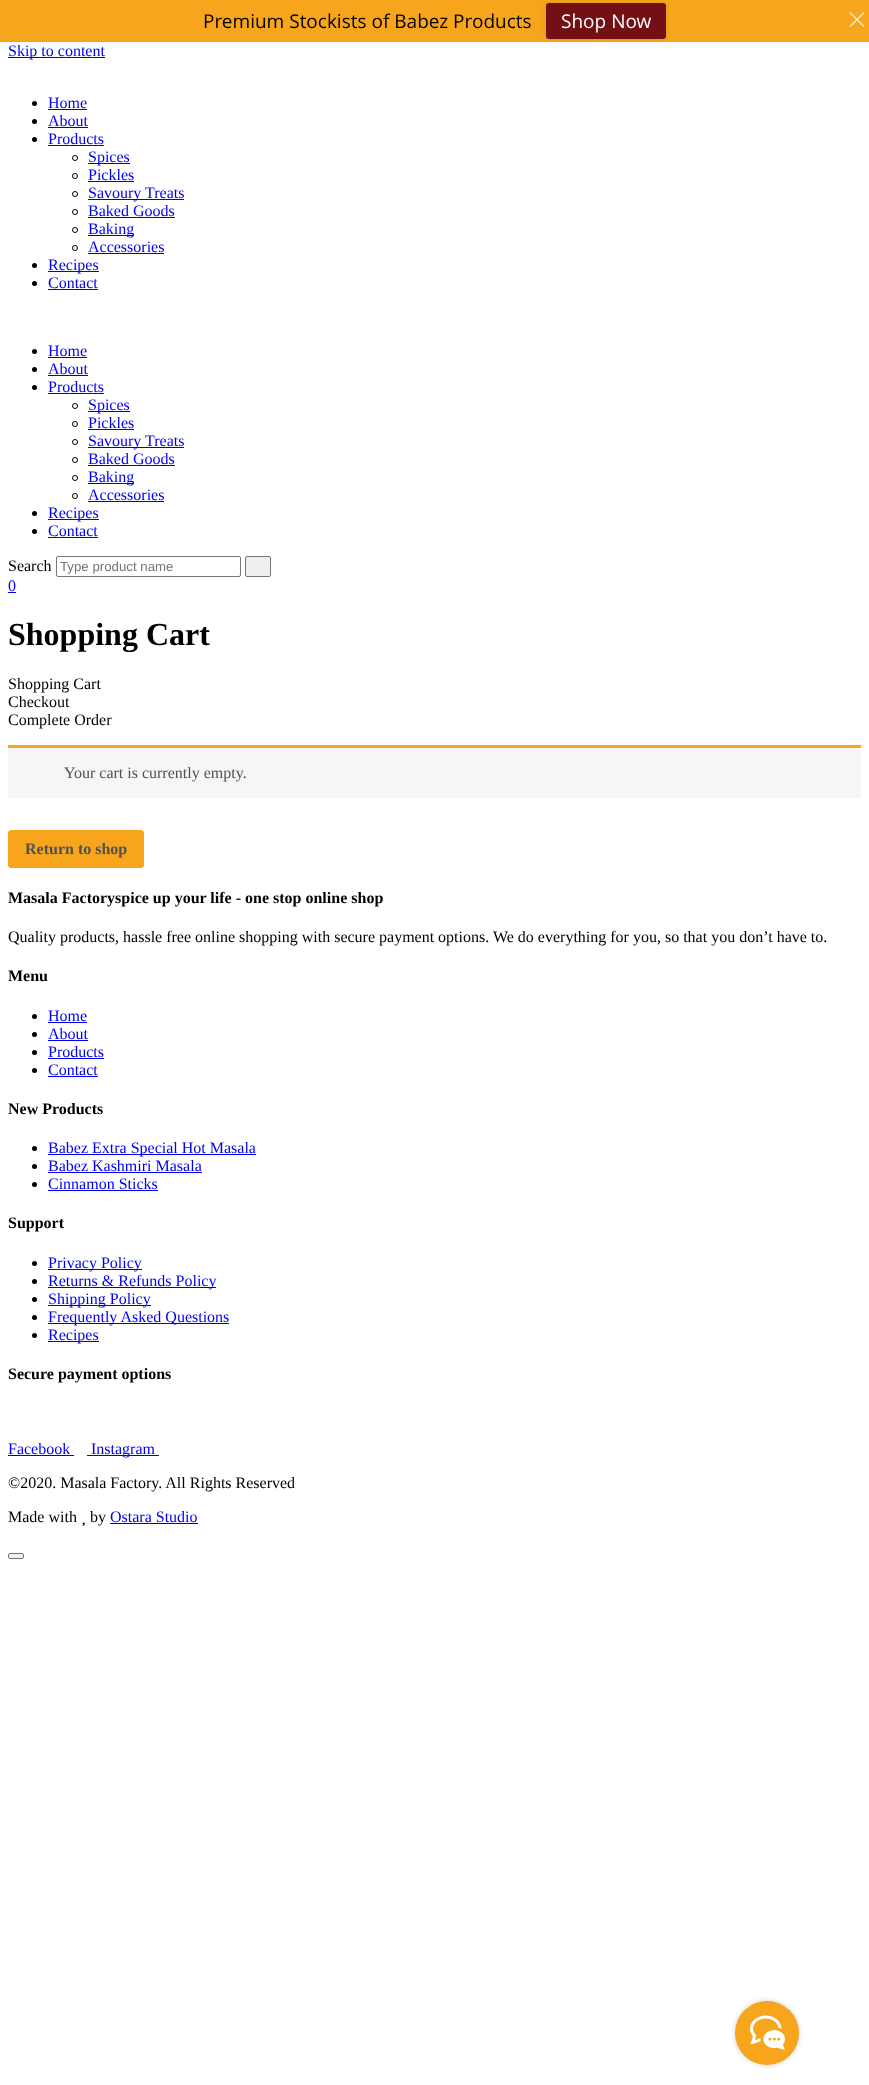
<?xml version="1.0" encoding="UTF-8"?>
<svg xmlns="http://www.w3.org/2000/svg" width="869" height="2085">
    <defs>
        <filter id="blur1" x="-50%" y="-200%" width="200%" height="500%"><feGaussianBlur stdDeviation="2.5"/></filter>
    </defs>
    <rect width="100%" height="100%" fill="#FFFFFF"/>
    <rect x="0" y="0" width="869" height="42" fill="#F7A51C"/>
    <text x="203" y="28" font-family="Open Sans" font-size="19" fill="#000000">Premium Stockists of Babez Products</text>
    <rect x="546" y="3" width="120" height="36" rx="3" fill="#000000" fill-opacity="0.1" filter="url(#blur1)"/>
    <rect x="546" y="3" width="120" height="36" rx="3" fill="#731014"/>
    <text x="561" y="28" font-family="Open Sans" font-size="19" fill="#FFFFFF">Shop Now</text>
    <image x="849" y="12" width="15" height="15" href="img_01.png"/>
    <rect x="8" y="57" width="97" height="1" fill="#0000EE"/>
    <text x="8" y="56" font-family="Liberation Serif" font-size="16" fill="#0000EE">Skip to content</text>
    <circle cx="34.5" cy="103.5" r="2.5" fill="#000000"/>
    <text x="48" y="108" font-family="Liberation Serif" font-size="16" fill="#0000EE">Home</text>
    <rect x="48" y="109" width="39" height="1" fill="#0000EE"/>
    <circle cx="34.5" cy="121.5" r="2.5" fill="#000000"/>
    <text x="48" y="126" font-family="Liberation Serif" font-size="16" fill="#0000EE">About</text>
    <rect x="48" y="127" width="40" height="1" fill="#0000EE"/>
    <circle cx="34.5" cy="139.5" r="2.5" fill="#000000"/>
    <text x="48" y="144" font-family="Liberation Serif" font-size="16" fill="#0000EE">Products</text>
    <rect x="48" y="145" width="56" height="1" fill="#0000EE"/>
    <circle cx="75" cy="158" r="2.5" fill="none" stroke="#000000"/>
    <rect x="88" y="163" width="42" height="1" fill="#0000EE"/>
    <text x="88" y="162" font-family="Liberation Serif" font-size="16" fill="#0000EE">Spices</text>
    <circle cx="75" cy="176" r="2.5" fill="none" stroke="#000000"/>
    <text x="88" y="180" font-family="Liberation Serif" font-size="16" fill="#0000EE">Pickles</text>
    <rect x="88" y="181" width="46" height="1" fill="#0000EE"/>
    <circle cx="75" cy="194" r="2.5" fill="none" stroke="#000000"/>
    <rect x="88" y="199" width="96" height="1" fill="#0000EE"/>
    <text x="88" y="198" font-family="Liberation Serif" font-size="16" fill="#0000EE">Savoury Treats</text>
    <circle cx="75" cy="212" r="2.5" fill="none" stroke="#000000"/>
    <text x="88" y="216" font-family="Liberation Serif" font-size="16" fill="#0000EE">Baked Goods</text>
    <rect x="88" y="217" width="87" height="1" fill="#0000EE"/>
    <circle cx="75" cy="230" r="2.5" fill="none" stroke="#000000"/>
    <rect x="88" y="235" width="46" height="1" fill="#0000EE"/>
    <text x="88" y="234" font-family="Liberation Serif" font-size="16" fill="#0000EE">Baking</text>
    <circle cx="75" cy="248" r="2.5" fill="none" stroke="#000000"/>
    <text x="88" y="252" font-family="Liberation Serif" font-size="16" fill="#0000EE">Accessories</text>
    <rect x="88" y="253" width="76" height="1" fill="#0000EE"/>
    <circle cx="34.5" cy="265.5" r="2.5" fill="#000000"/>
    <rect x="48" y="271" width="51" height="1" fill="#0000EE"/>
    <text x="48" y="270" font-family="Liberation Serif" font-size="16" fill="#0000EE">Recipes</text>
    <circle cx="34.5" cy="283.5" r="2.5" fill="#000000"/>
    <text x="48" y="288" font-family="Liberation Serif" font-size="16" fill="#0000EE">Contact</text>
    <rect x="48" y="289" width="50" height="1" fill="#0000EE"/>
    <circle cx="34.5" cy="351.5" r="2.5" fill="#000000"/>
    <text x="48" y="356" font-family="Liberation Serif" font-size="16" fill="#0000EE">Home</text>
    <rect x="48" y="357" width="39" height="1" fill="#0000EE"/>
    <circle cx="34.5" cy="369.5" r="2.5" fill="#000000"/>
    <text x="48" y="374" font-family="Liberation Serif" font-size="16" fill="#0000EE">About</text>
    <rect x="48" y="375" width="40" height="1" fill="#0000EE"/>
    <circle cx="34.5" cy="387.5" r="2.5" fill="#000000"/>
    <text x="48" y="392" font-family="Liberation Serif" font-size="16" fill="#0000EE">Products</text>
    <rect x="48" y="393" width="56" height="1" fill="#0000EE"/>
    <circle cx="75" cy="406" r="2.5" fill="none" stroke="#000000"/>
    <rect x="88" y="411" width="42" height="1" fill="#0000EE"/>
    <text x="88" y="410" font-family="Liberation Serif" font-size="16" fill="#0000EE">Spices</text>
    <circle cx="75" cy="424" r="2.5" fill="none" stroke="#000000"/>
    <text x="88" y="428" font-family="Liberation Serif" font-size="16" fill="#0000EE">Pickles</text>
    <rect x="88" y="429" width="46" height="1" fill="#0000EE"/>
    <circle cx="75" cy="442" r="2.5" fill="none" stroke="#000000"/>
    <rect x="88" y="447" width="96" height="1" fill="#0000EE"/>
    <text x="88" y="446" font-family="Liberation Serif" font-size="16" fill="#0000EE">Savoury Treats</text>
    <circle cx="75" cy="460" r="2.5" fill="none" stroke="#000000"/>
    <text x="88" y="464" font-family="Liberation Serif" font-size="16" fill="#0000EE">Baked Goods</text>
    <rect x="88" y="465" width="87" height="1" fill="#0000EE"/>
    <circle cx="75" cy="478" r="2.5" fill="none" stroke="#000000"/>
    <rect x="88" y="483" width="46" height="1" fill="#0000EE"/>
    <text x="88" y="482" font-family="Liberation Serif" font-size="16" fill="#0000EE">Baking</text>
    <circle cx="75" cy="496" r="2.5" fill="none" stroke="#000000"/>
    <text x="88" y="500" font-family="Liberation Serif" font-size="16" fill="#0000EE">Accessories</text>
    <rect x="88" y="501" width="76" height="1" fill="#0000EE"/>
    <circle cx="34.5" cy="513.5" r="2.5" fill="#000000"/>
    <rect x="48" y="519" width="51" height="1" fill="#0000EE"/>
    <text x="48" y="518" font-family="Liberation Serif" font-size="16" fill="#0000EE">Recipes</text>
    <circle cx="34.5" cy="531.5" r="2.5" fill="#000000"/>
    <text x="48" y="536" font-family="Liberation Serif" font-size="16" fill="#0000EE">Contact</text>
    <rect x="48" y="537" width="50" height="1" fill="#0000EE"/>
    <text x="8" y="571" font-family="Liberation Serif" font-size="16" fill="#000000">Search</text>
    <rect x="56.5" y="556.5" width="184" height="20" rx="1.5" fill="none" stroke="#767676"/>
    <text x="60" y="571" font-family="Liberation Sans" font-size="13.25" fill="#757575">Type product name</text>
    <rect x="245.5" y="556.5" width="25" height="20" rx="1.5" fill="#EFEFEF" stroke="#767676"/>
    <text x="8" y="591" font-family="Liberation Serif" font-size="16" fill="#0000EE">0</text>
    <rect x="8" y="592" width="8" height="1" fill="#0000EE"/>
    <text x="8" y="645" font-family="Liberation Serif" font-size="32" font-weight="700" fill="#000000">Shopping Cart</text>
    <text font-family="Liberation Serif" font-size="16" fill="#000000">
        <tspan x="8" y="689">Shopping Cart</tspan>
        <tspan x="8" y="707">Checkout</tspan>
        <tspan x="8" y="725">Complete Order</tspan>
    </text>
    <rect x="8" y="748" width="853" height="50" fill="#F6F5F8"/>
    <rect x="8" y="745" width="853" height="3" fill="#F7A51C"/>
    <text x="64" y="778" font-family="Liberation Serif" font-size="16" fill="#515151">Your cart is currently empty.</text>
    <rect x="8.5" y="830.5" width="135" height="37" rx="2.5" fill="#F7A51C" stroke="#F7A51C"/>
    <text x="25" y="854" font-family="Liberation Serif" font-size="16" font-weight="700" fill="#515151">Return to shop</text>
    <text x="8" y="903" font-family="Liberation Serif" font-size="16" font-weight="700" fill="#000000">Masala Factoryspice up your life - one stop online shop</text>
    <text x="8" y="942" font-family="Liberation Serif" font-size="16" fill="#000000">Quality products, hassle free online shopping with secure payment options. We do everything for you, so that you don’t have to.</text>
    <text x="8" y="981" font-family="Liberation Serif" font-size="16" font-weight="700" fill="#000000">Menu</text>
    <circle cx="34.5" cy="1016.5" r="2.5" fill="#000000"/>
    <text x="48" y="1021" font-family="Liberation Serif" font-size="16" fill="#0000EE">Home</text>
    <rect x="48" y="1022" width="39" height="1" fill="#0000EE"/>
    <circle cx="34.5" cy="1034.5" r="2.5" fill="#000000"/>
    <text x="48" y="1039" font-family="Liberation Serif" font-size="16" fill="#0000EE">About</text>
    <rect x="48" y="1040" width="40" height="1" fill="#0000EE"/>
    <circle cx="34.5" cy="1052.5" r="2.5" fill="#000000"/>
    <text x="48" y="1057" font-family="Liberation Serif" font-size="16" fill="#0000EE">Products</text>
    <rect x="48" y="1058" width="56" height="1" fill="#0000EE"/>
    <circle cx="34.5" cy="1070.5" r="2.5" fill="#000000"/>
    <text x="48" y="1075" font-family="Liberation Serif" font-size="16" fill="#0000EE">Contact</text>
    <rect x="48" y="1076" width="50" height="1" fill="#0000EE"/>
    <text x="8" y="1114" font-family="Liberation Serif" font-size="16" font-weight="700" fill="#000000">New Products</text>
    <circle cx="34.5" cy="1148.5" r="2.5" fill="#000000"/>
    <rect x="48" y="1154" width="208" height="1" fill="#0000EE"/>
    <text x="48" y="1153" font-family="Liberation Serif" font-size="16" fill="#0000EE">Babez Extra Special Hot Masala</text>
    <circle cx="34.5" cy="1166.5" r="2.5" fill="#000000"/>
    <text x="48" y="1171" font-family="Liberation Serif" font-size="16" fill="#0000EE">Babez Kashmiri Masala</text>
    <rect x="48" y="1172" width="154" height="1" fill="#0000EE"/>
    <circle cx="34.5" cy="1184.5" r="2.5" fill="#000000"/>
    <text x="48" y="1189" font-family="Liberation Serif" font-size="16" fill="#0000EE">Cinnamon Sticks</text>
    <rect x="48" y="1190" width="110" height="1" fill="#0000EE"/>
    <text x="8" y="1228" font-family="Liberation Serif" font-size="16" font-weight="700" fill="#000000">Support</text>
    <circle cx="34.5" cy="1263.5" r="2.5" fill="#000000"/>
    <rect x="48" y="1269" width="94" height="1" fill="#0000EE"/>
    <text x="48" y="1268" font-family="Liberation Serif" font-size="16" fill="#0000EE">Privacy Policy</text>
    <circle cx="34.5" cy="1281.5" r="2.5" fill="#000000"/>
    <rect x="48" y="1287" width="168" height="1" fill="#0000EE"/>
    <text x="48" y="1286" font-family="Liberation Serif" font-size="16" fill="#0000EE">Returns &amp; Refunds Policy</text>
    <circle cx="34.5" cy="1299.5" r="2.5" fill="#000000"/>
    <rect x="48" y="1305" width="103" height="1" fill="#0000EE"/>
    <text x="48" y="1304" font-family="Liberation Serif" font-size="16" fill="#0000EE">Shipping Policy</text>
    <circle cx="34.5" cy="1317.5" r="2.5" fill="#000000"/>
    <rect x="48" y="1323" width="181" height="1" fill="#0000EE"/>
    <text x="48" y="1322" font-family="Liberation Serif" font-size="16" fill="#0000EE">Frequently Asked Questions</text>
    <circle cx="34.5" cy="1335.5" r="2.5" fill="#000000"/>
    <rect x="48" y="1341" width="51" height="1" fill="#0000EE"/>
    <text x="48" y="1340" font-family="Liberation Serif" font-size="16" fill="#0000EE">Recipes</text>
    <text x="8" y="1379" font-family="Liberation Serif" font-size="16" font-weight="700" fill="#000000">Secure payment options</text>
    <text x="8" y="1454" font-family="Liberation Serif" font-size="16" fill="#0000EE">Facebook</text>
    <rect x="8" y="1455" width="66" height="1" fill="#0000EE"/>
    <rect x="87" y="1455" width="72" height="1" fill="#0000EE"/>
    <text x="91" y="1454" font-family="Liberation Serif" font-size="16" fill="#0000EE">Instagram</text>
    <text x="8" y="1488" font-family="Liberation Serif" font-size="16" fill="#000000">©2020. Masala Factory. All Rights Reserved</text>
    <text x="8" y="1522" font-family="Liberation Serif" font-size="16" fill="#000000">Made with</text>
    <text x="90" y="1522" font-family="Liberation Serif" font-size="16" fill="#000000">by</text>
    <text x="110" y="1522" font-family="Liberation Serif" font-size="16" fill="#0000EE">Ostara Studio</text>
    <rect x="110" y="1523" width="88" height="1" fill="#0000EE"/>
    <image x="82" y="1522" width="3" height="4" href="img_02.png"/>
    <rect x="8.5" y="1553.5" width="15" height="5" rx="1.5" fill="#EFEFEF" stroke="#767676"/>
    <rect x="735" y="2001" width="64" height="64" rx="32" fill="#000000" fill-opacity="0.2" filter="url(#blur1)"/>
    <circle cx="767" cy="2033" r="32" fill="#F7A51C"/>
    <image x="750" y="2015" width="35" height="35" href="img_03.png"/>
</svg>
